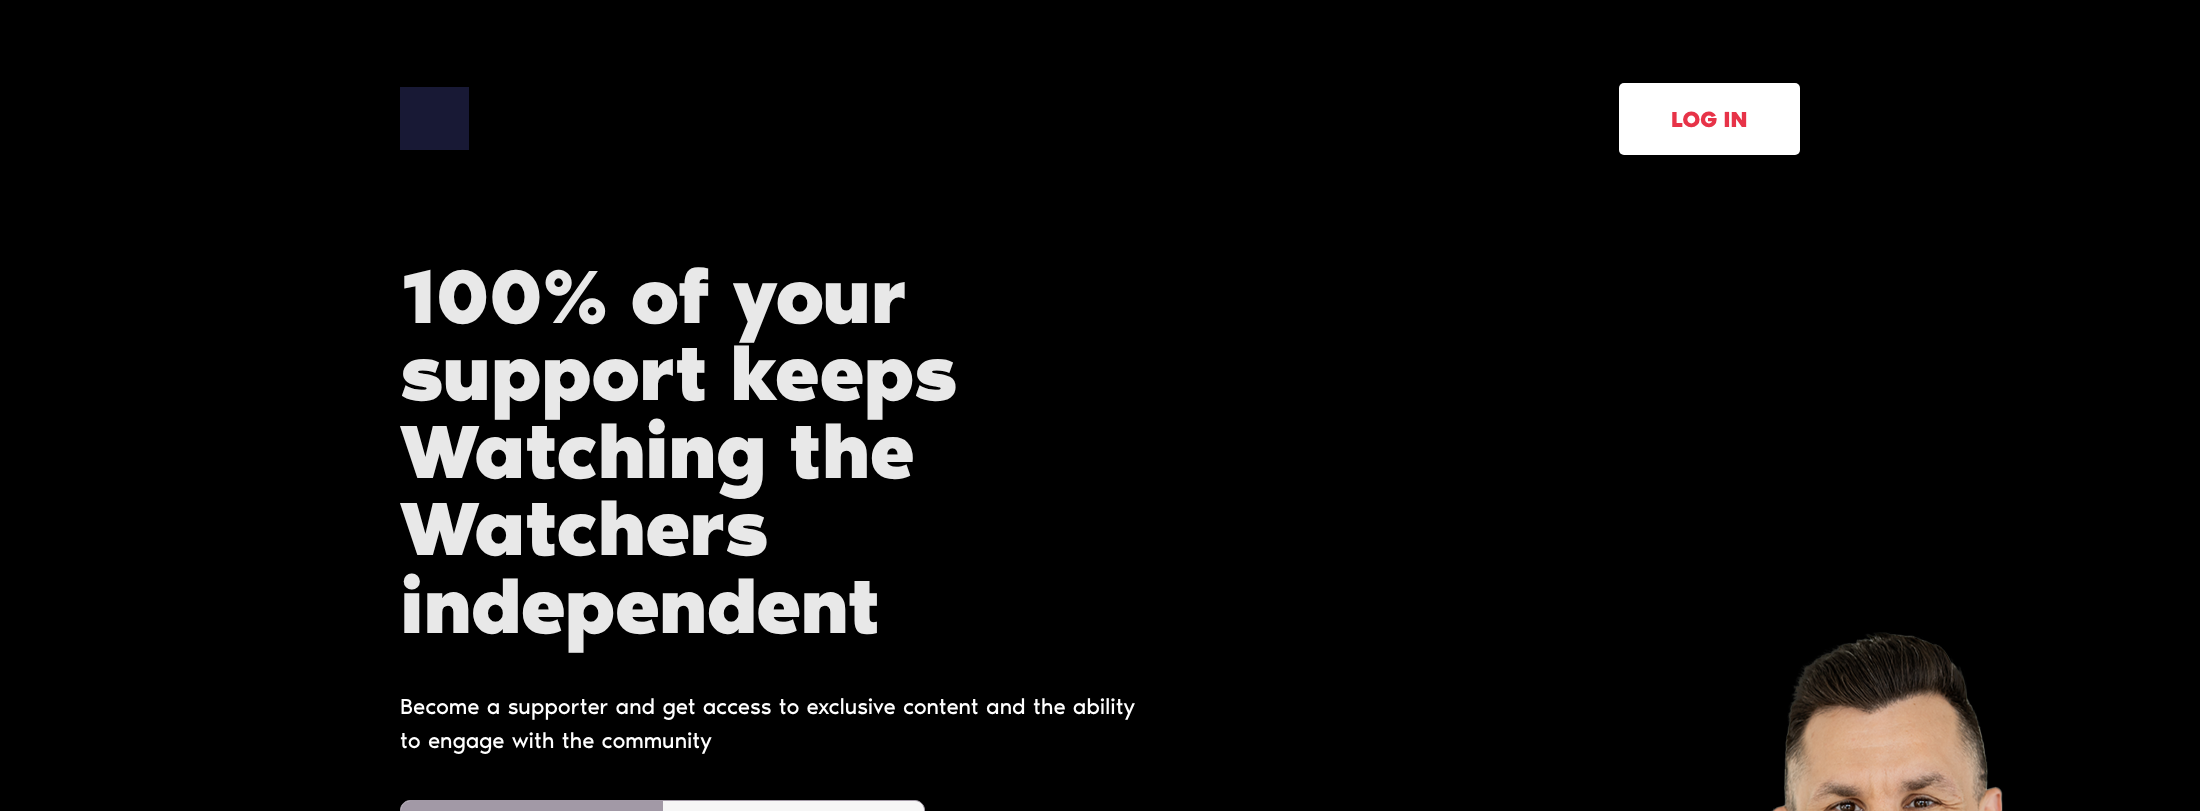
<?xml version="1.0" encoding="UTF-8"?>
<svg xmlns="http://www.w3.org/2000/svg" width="2200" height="811">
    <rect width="100%" height="100%" fill="#000000"/>
    <image x="1771" y="632" width="232" height="179" href="img_01.png"/>
    <rect x="400" y="87" width="69" height="63" fill="#181935"/>
    <rect x="1619" y="83" width="181" height="72" rx="5" fill="#FFFFFF"/>
    <text x="1671" y="127" font-family="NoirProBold" font-size="22.5" font-weight="700" fill="#E73348">LOG IN</text>
    <text font-family="NoirProBold" font-size="77.5" font-weight="700" fill="#E8E8E8">
        <tspan x="400" y="323">100% of your</tspan>
        <tspan x="400" y="400">support keeps</tspan>
        <tspan x="400" y="478">Watching the</tspan>
        <tspan x="400" y="555">Watchers</tspan>
        <tspan x="400" y="633">independent</tspan>
    </text>
    <text font-family="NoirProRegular" font-size="22.5" fill="#FFFFFF">
        <tspan x="400" y="714">Become a supporter and get access to exclusive content and the ability</tspan>
        <tspan x="400" y="748">to engage with the community</tspan>
    </text>
    <path d="M 410 800.5 H 915 C 920 800.5 924.5 805 924.5 810 V 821.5 H 400.5 V 810 C 400.5 805 405 800.5 410 800.5 Z" fill="#F6F6F6" stroke="#A299A6"/>
    <path d="M 410 801 H 663 V 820 H 401 V 810 C 401 805 405 801 410 801 Z" fill="#A299A6"/>
</svg>
